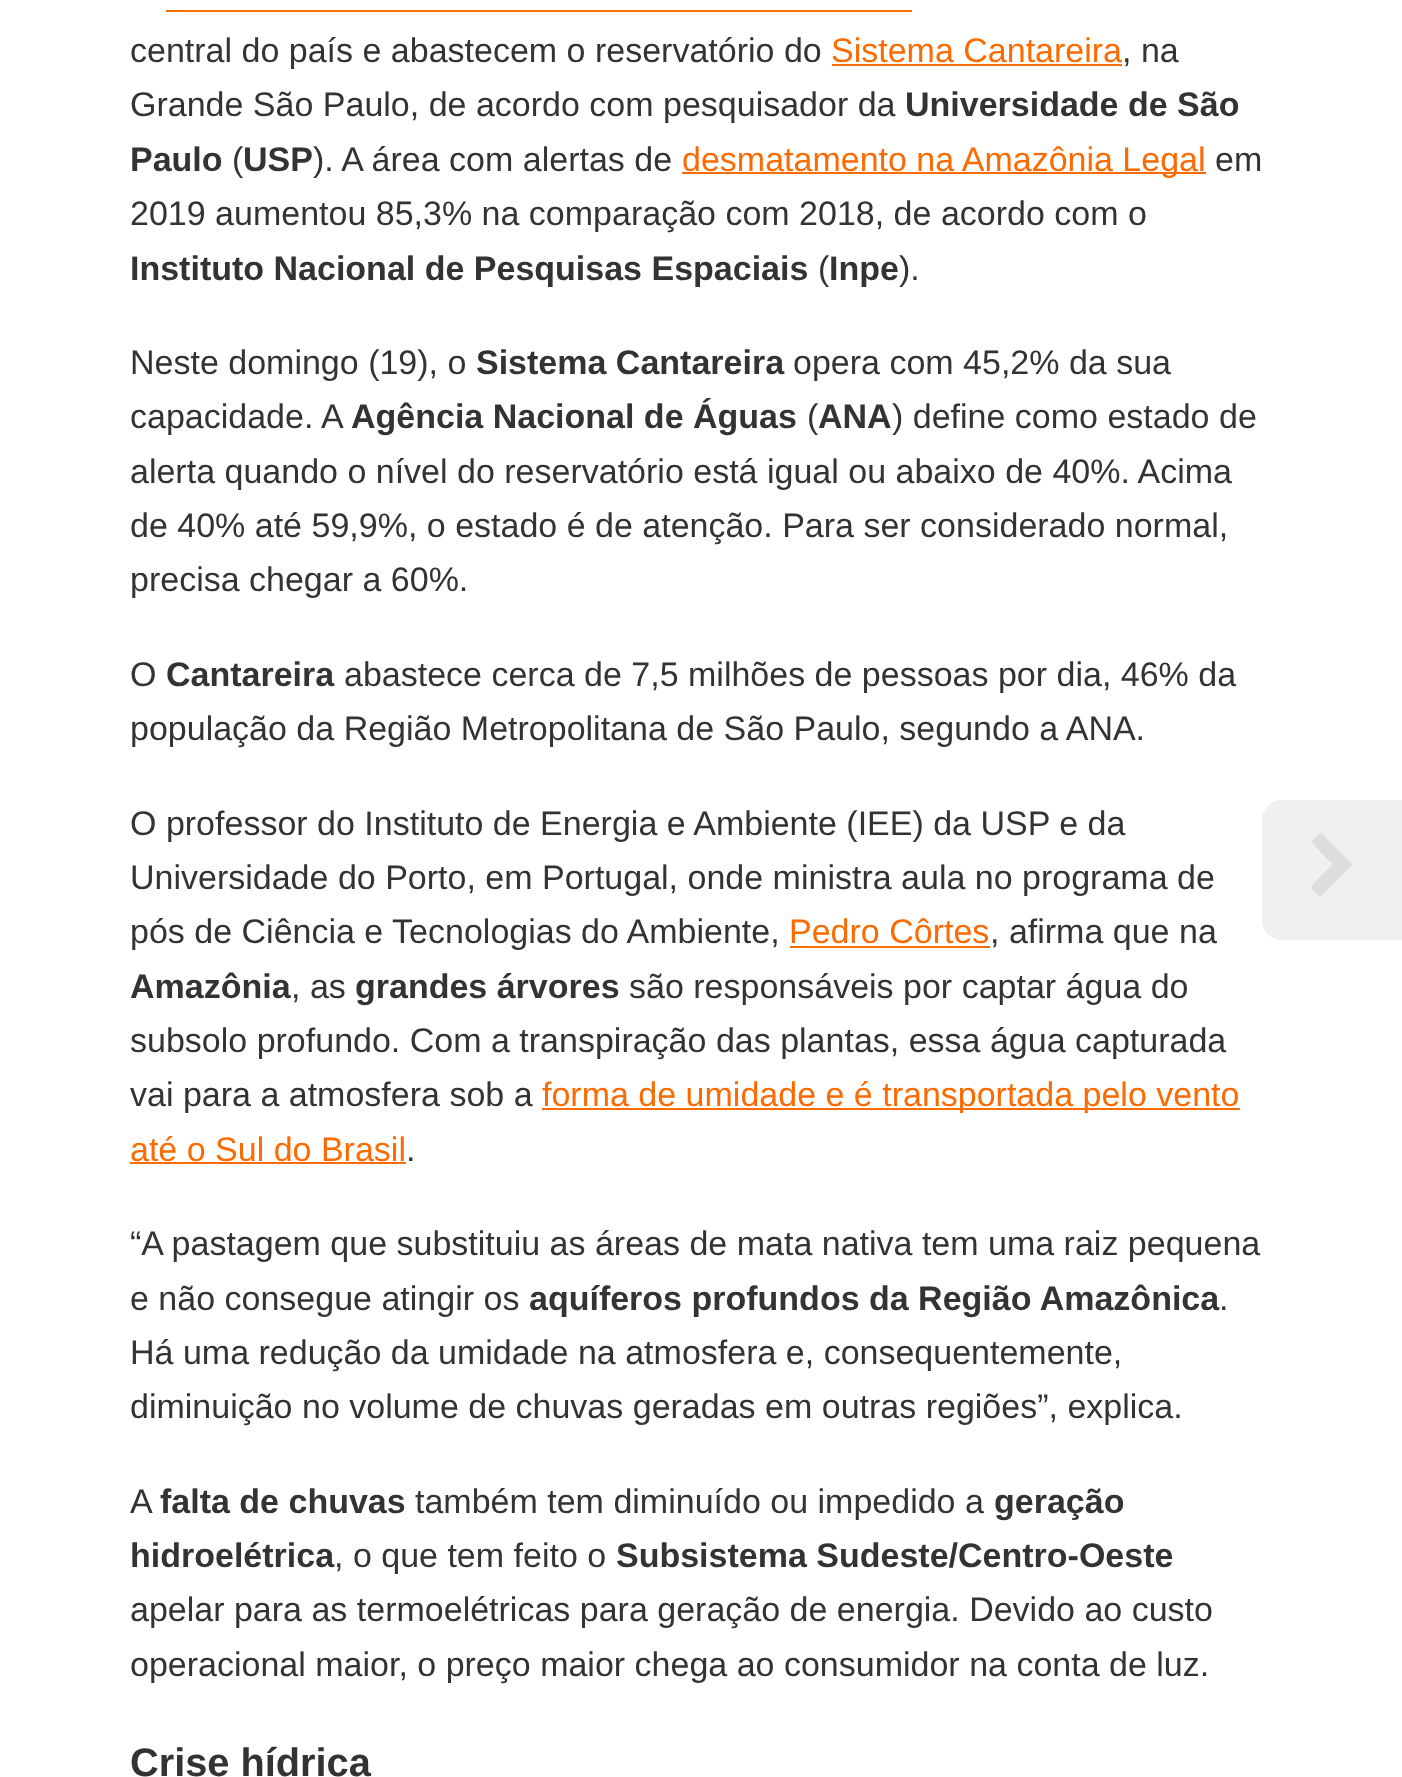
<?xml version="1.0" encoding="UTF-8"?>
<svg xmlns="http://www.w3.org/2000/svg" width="1402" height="1777">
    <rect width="100%" height="100%" fill="#FFFFFF"/>
    <rect x="166" y="10" width="746" height="2" fill="#FC6B01"/>
    <text x="130" y="62" font-family="Liberation Sans" font-size="34" fill="#333333">central do país e abastecem o reservatório do</text>
    <text x="831" y="62" font-family="Liberation Sans" font-size="34" fill="#FC6B01">Sistema Cantareira</text>
    <rect x="832" y="64" width="290" height="2" fill="#FC6B01"/>
    <text x="1122" y="62" font-family="Liberation Sans" font-size="34" fill="#333333">, na</text>
    <text x="130" y="116" font-family="Liberation Sans" font-size="34" fill="#333333">Grande São Paulo, de acordo com pesquisador da</text>
    <text x="905" y="116" font-family="Liberation Sans" font-size="34" font-weight="700" fill="#333333">Universidade de São</text>
    <text x="130" y="171" font-family="Liberation Sans" font-size="34" font-weight="700" fill="#333333">Paulo</text>
    <text x="232" y="171" font-family="Liberation Sans" font-size="34" fill="#333333">(</text>
    <text x="243" y="171" font-family="Liberation Sans" font-size="34" font-weight="700" fill="#333333">USP</text>
    <text x="313" y="171" font-family="Liberation Sans" font-size="34" fill="#333333">). A área com alertas de</text>
    <rect x="682" y="172" width="524" height="2" fill="#FC6B01"/>
    <text x="682" y="171" font-family="Liberation Sans" font-size="34" fill="#FC6B01">desmatamento na Amazônia Legal</text>
    <text x="1215" y="171" font-family="Liberation Sans" font-size="34" fill="#333333">em</text>
    <text x="130" y="225" font-family="Liberation Sans" font-size="34" fill="#333333">2019 aumentou 85,3% na comparação com 2018, de acordo com o</text>
    <text x="130" y="280" font-family="Liberation Sans" font-size="34" font-weight="700" fill="#333333">Instituto Nacional de Pesquisas Espaciais</text>
    <text x="818" y="280" font-family="Liberation Sans" font-size="34" fill="#333333">(</text>
    <text x="829" y="280" font-family="Liberation Sans" font-size="34" font-weight="700" fill="#333333">Inpe</text>
    <text x="899" y="280" font-family="Liberation Sans" font-size="34" fill="#333333">).</text>
    <text x="130" y="374" font-family="Liberation Sans" font-size="34" fill="#333333">Neste domingo (19), o</text>
    <text x="476" y="374" font-family="Liberation Sans" font-size="34" font-weight="700" fill="#333333">Sistema Cantareira</text>
    <text x="793" y="374" font-family="Liberation Sans" font-size="34" fill="#333333">opera com 45,2% da sua</text>
    <text x="130" y="428" font-family="Liberation Sans" font-size="34" fill="#333333">capacidade. A</text>
    <text x="351" y="428" font-family="Liberation Sans" font-size="34" font-weight="700" fill="#333333">Agência Nacional de Águas</text>
    <text x="807" y="428" font-family="Liberation Sans" font-size="34" fill="#333333">(</text>
    <text x="818" y="428" font-family="Liberation Sans" font-size="34" font-weight="700" fill="#333333">ANA</text>
    <text x="892" y="428" font-family="Liberation Sans" font-size="34" fill="#333333">) define como estado de</text>
    <text font-family="Liberation Sans" font-size="34" fill="#333333">
        <tspan x="130" y="483">alerta quando o nível do reservatório está igual ou abaixo de 40%. Acima</tspan>
        <tspan x="130" y="537">de 40% até 59,9%, o estado é de atenção. Para ser considerado normal,</tspan>
        <tspan x="130" y="591">precisa chegar a 60%.</tspan>
    </text>
    <text x="130" y="686" font-family="Liberation Sans" font-size="34" fill="#333333">O</text>
    <text x="166" y="686" font-family="Liberation Sans" font-size="34" font-weight="700" fill="#333333">Cantareira</text>
    <text x="344" y="686" font-family="Liberation Sans" font-size="34" fill="#333333">abastece cerca de 7,5 milhões de pessoas por dia, 46% da</text>
    <text x="130" y="740" font-family="Liberation Sans" font-size="34" fill="#333333">população da Região Metropolitana de São Paulo, segundo a ANA.</text>
    <text font-family="Liberation Sans" font-size="34" fill="#333333">
        <tspan x="130" y="835">O professor do Instituto de Energia e Ambiente (IEE) da USP e da</tspan>
        <tspan x="130" y="889">Universidade do Porto, em Portugal, onde ministra aula no programa de</tspan>
        <tspan x="130" y="943">pós de Ciência e Tecnologias do Ambiente,</tspan>
    </text>
    <text x="789" y="943" font-family="Liberation Sans" font-size="34" fill="#FC6B01">Pedro Côrtes</text>
    <rect x="790" y="946" width="200" height="2" fill="#FC6B01"/>
    <text x="990" y="943" font-family="Liberation Sans" font-size="34" fill="#333333">, afirma que na</text>
    <text x="130" y="998" font-family="Liberation Sans" font-size="34" font-weight="700" fill="#333333">Amazônia</text>
    <text x="291" y="998" font-family="Liberation Sans" font-size="34" fill="#333333">, as</text>
    <text x="355" y="998" font-family="Liberation Sans" font-size="34" font-weight="700" fill="#333333">grandes árvores</text>
    <text x="629" y="998" font-family="Liberation Sans" font-size="34" fill="#333333">são responsáveis por captar água do</text>
    <text font-family="Liberation Sans" font-size="34" fill="#333333">
        <tspan x="130" y="1052">subsolo profundo. Com a transpiração das plantas, essa água capturada</tspan>
        <tspan x="130" y="1106">vai para a atmosfera sob a</tspan>
    </text>
    <rect x="542" y="1108" width="698" height="2" fill="#FC6B01"/>
    <text x="542" y="1106" font-family="Liberation Sans" font-size="34" fill="#FC6B01">forma de umidade e é transportada pelo vento</text>
    <text x="130" y="1161" font-family="Liberation Sans" font-size="34" fill="#FC6B01">até o Sul do Brasil</text>
    <rect x="130" y="1162" width="276" height="2" fill="#FC6B01"/>
    <text x="406" y="1161" font-family="Liberation Sans" font-size="34" fill="#333333">.</text>
    <text font-family="Liberation Sans" font-size="34" fill="#333333">
        <tspan x="130" y="1255">“A pastagem que substituiu as áreas de mata nativa tem uma raiz pequena</tspan>
        <tspan x="130" y="1310">e não consegue atingir os</tspan>
    </text>
    <text x="529" y="1310" font-family="Liberation Sans" font-size="34" font-weight="700" fill="#333333">aquíferos profundos da Região Amazônica</text>
    <text x="1219" y="1310" font-family="Liberation Sans" font-size="34" fill="#333333">.</text>
    <text font-family="Liberation Sans" font-size="34" fill="#333333">
        <tspan x="130" y="1364">Há uma redução da umidade na atmosfera e, consequentemente,</tspan>
        <tspan x="130" y="1418">diminuição no volume de chuvas geradas em outras regiões”, explica.</tspan>
    </text>
    <text x="130" y="1513" font-family="Liberation Sans" font-size="34" fill="#333333">A</text>
    <text x="160" y="1513" font-family="Liberation Sans" font-size="34" font-weight="700" fill="#333333">falta de chuvas</text>
    <text x="415" y="1513" font-family="Liberation Sans" font-size="34" fill="#333333">também tem diminuído ou impedido a</text>
    <text x="994" y="1513" font-family="Liberation Sans" font-size="34" font-weight="700" fill="#333333">geração</text>
    <text x="130" y="1567" font-family="Liberation Sans" font-size="34" font-weight="700" fill="#333333">hidroelétrica</text>
    <text x="334" y="1567" font-family="Liberation Sans" font-size="34" fill="#333333">, o que tem feito o</text>
    <text x="616" y="1567" font-family="Liberation Sans" font-size="34" font-weight="700" fill="#333333">Subsistema Sudeste/Centro-Oeste</text>
    <text font-family="Liberation Sans" font-size="34" fill="#333333">
        <tspan x="130" y="1621">apelar para as termoelétricas para geração de energia. Devido ao custo</tspan>
        <tspan x="130" y="1676">operacional maior, o preço maior chega ao consumidor na conta de luz.</tspan>
    </text>
    <text x="130" y="1776" font-family="Liberation Sans" font-size="39.75" font-weight="700" fill="#333333">Crise hídrica</text>
    <path d="M 1282 800 H 1402 V 940 H 1282 C 1271 940 1262 931 1262 920 V 820 C 1262 809 1271 800 1282 800 Z" fill="#F0F0F0"/>
    <path d="M 1351 866 L 1322 895 C 1319 898 1316 892 1314 891 C 1309 885 1313 885 1319 878 L 1333 864 C 1330 862 1312 844 1312 842 C 1312 840 1314 838 1316 837 C 1322 831 1321 832 1327 839 L 1346 858 C 1347 858 1352 862 1352 865 Z" fill="#DDDDDD"/>
</svg>
